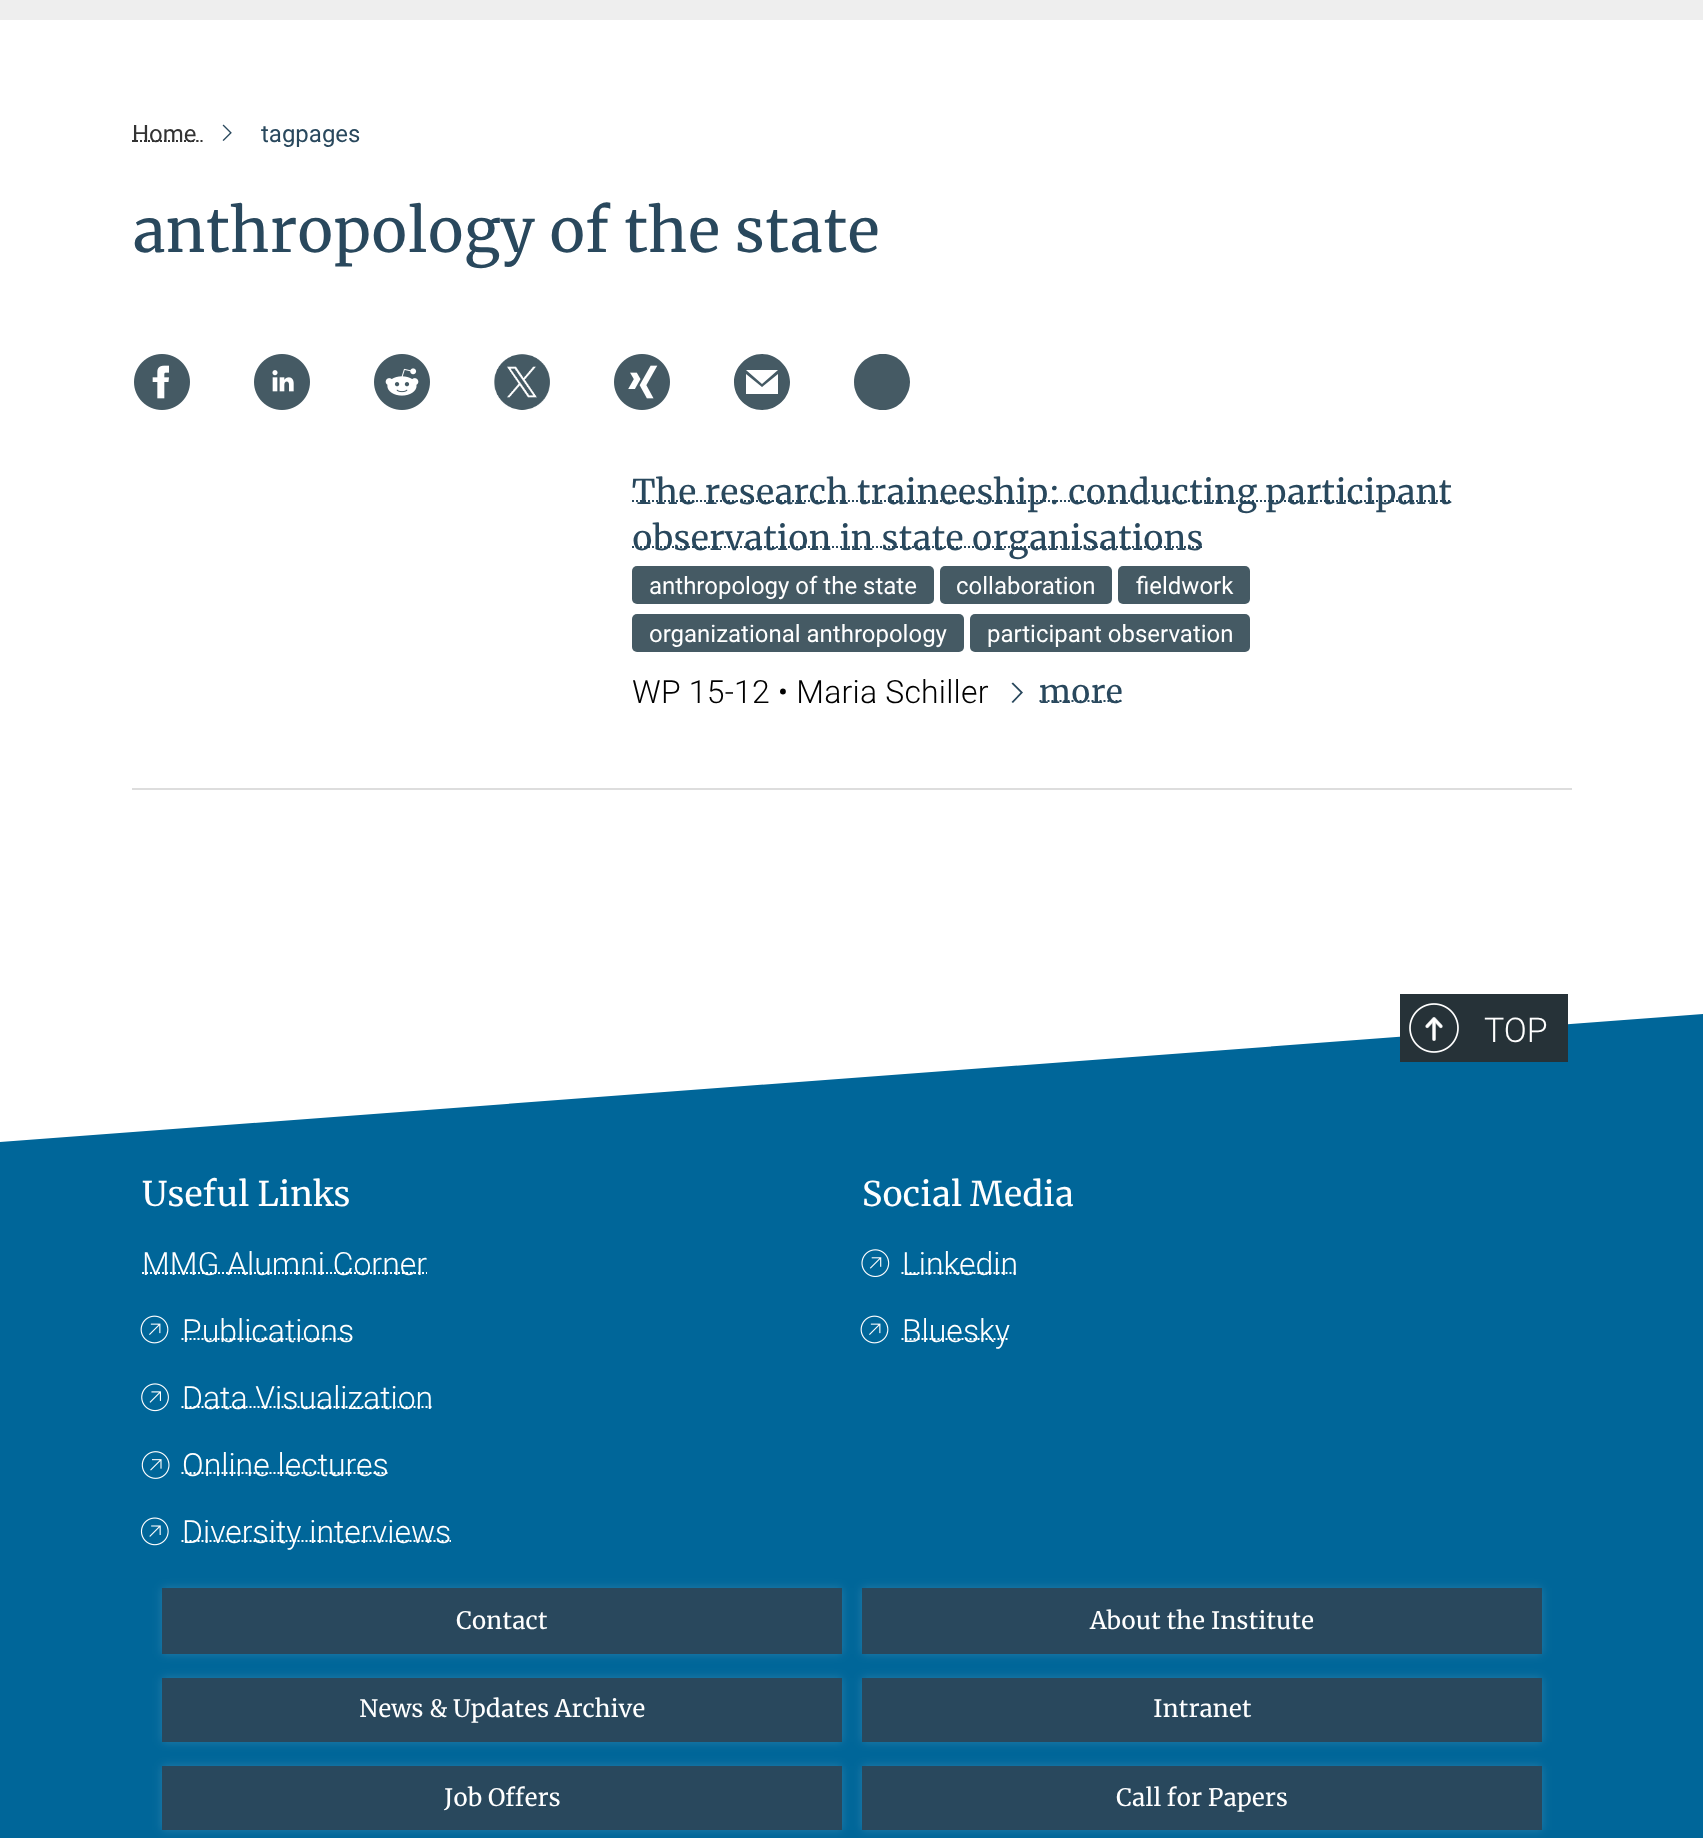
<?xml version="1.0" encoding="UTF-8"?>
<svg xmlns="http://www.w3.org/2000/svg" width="1703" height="1838">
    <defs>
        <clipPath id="clip1"><rect x="854" y="354" width="56" height="56"/></clipPath>
        <filter id="blur1" x="-50%" y="-200%" width="200%" height="500%"><feGaussianBlur stdDeviation="5"/></filter>
    </defs>
    <rect width="100%" height="100%" fill="#FFFFFF"/>
    <rect x="0" y="0" width="1703" height="20" fill="#EEEEEE"/>
    <path d="M 132 141 H 196.5" fill="none" stroke="#333333" stroke-width="2" stroke-dasharray="2 2"/>
    <text x="132" y="142" font-family="Roboto" font-size="24" fill="#333333">Home</text>
    <path d="M 196.5 141 H 198.5 M 200.5 141 H 202.5" fill="none" stroke="#333333" stroke-width="2"/>
    <image x="222" y="124" width="10" height="17" href="img_01.png"/>
    <text x="261" y="142" font-family="Roboto" font-size="24" fill="#29485D">tagpages</text>
    <text x="132" y="252" font-family="Merriweather" font-size="60" fill="#29485D">anthropology of the state</text>
    <image x="134" y="354" width="56" height="56" href="img_02.png"/>
    <image x="254" y="354" width="56" height="56" href="img_03.png"/>
    <image x="374" y="354" width="56" height="56" href="img_04.png"/>
    <image x="494" y="354" width="56" height="56" href="img_05.png"/>
    <image x="614" y="354" width="56" height="56" href="img_06.png"/>
    <path d="M 762 354 C 747 354 734 367 734 382 C 734 398 747 410 762 410 C 777 410 790 398 790 382 C 790 367 777 354 762 354 Z M 778 370 L 762 384 L 746 370 Z M 778 394 H 746 V 374 L 762 387 L 778 374 Z" fill="#455A64"/>
    <g clip-path="url(#clip1)">
        <path d="M 910 382 C 910 388 908 393 905 398 C 890 421 854 409 854 382 C 854 355 890 343 905 366 C 908 371 910 376 910 382 Z" fill="#455A64"/>
    </g>
    <rect x="132" y="788" width="1440" height="2" fill="#DDDDDD"/>
    <path d="M 632 501 H 1452" fill="none" stroke="#29485D" stroke-width="2" stroke-dasharray="2 2"/>
    <text x="632" y="504" font-family="Merriweather" font-size="34" fill="#29485D">The research traineeship: conducting participant</text>
    <path d="M 632 547 H 1203.5" fill="none" stroke="#29485D" stroke-width="2" stroke-dasharray="2 2"/>
    <text x="632" y="550" font-family="Merriweather" font-size="34" fill="#29485D">observation in state organisations</text>
    <rect x="632" y="566" width="302" height="38" rx="5" fill="#455A64"/>
    <text x="649" y="594" font-family="Roboto" font-size="24" fill="#FFFFFF">anthropology of the state</text>
    <rect x="940" y="566" width="172" height="38" rx="5" fill="#455A64"/>
    <text x="956" y="594" font-family="Roboto" font-size="24" fill="#FFFFFF">collaboration</text>
    <rect x="1118" y="566" width="132" height="38" rx="5" fill="#455A64"/>
    <text x="1136" y="594" font-family="Roboto" font-size="24" fill="#FFFFFF">fieldwork</text>
    <rect x="632" y="614" width="332" height="38" rx="5" fill="#455A64"/>
    <text x="649" y="642" font-family="Roboto" font-size="24" fill="#FFFFFF">organizational anthropology</text>
    <rect x="970" y="614" width="280" height="38" rx="5" fill="#455A64"/>
    <text x="987" y="642" font-family="Roboto" font-size="24" fill="#FFFFFF">participant observation</text>
    <text x="632" y="703" font-family="Roboto" font-size="32" font-weight="300" letter-spacing="0.2" fill="#000000">WP 15-12 • Maria Schiller</text>
    <path d="M 1011.5 702 L 1020.5 692.5 L 1011.5 683.5 L 1013 682.5 L 1023 692.5 L 1013 703 Z" fill="#29485D"/>
    <path d="M 1039.5 701 H 1123.5" fill="none" stroke="#29485D" stroke-width="2" stroke-dasharray="2 2"/>
    <text x="1039" y="703" font-family="Merriweather" font-size="32" letter-spacing="0.2" fill="#29485D">more</text>
    <rect x="0" y="1155" width="1703" height="683" fill="#006699"/>
    <path d="M 0 1142 L 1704 1014 V 1155 H 0" fill="#006699"/>
    <rect x="1400" y="994" width="168" height="68" fill="#263238"/>
    <image x="1425" y="1017" width="18" height="24" href="img_07.png"/>
    <image x="1409" y="1003" width="50" height="50" href="img_08.png"/>
    <text x="1484" y="1042" font-family="Roboto" font-size="34" font-weight="300" fill="#FFFFFF">TOP</text>
    <text x="142" y="1206" font-family="Merriweather" font-size="34" fill="#FFFFFF">Useful Links</text>
    <path d="M 142 1273 H 427" fill="none" stroke="#FFFFFF" stroke-width="2" stroke-dasharray="2 2"/>
    <text x="142" y="1275" font-family="Roboto" font-size="32" font-weight="300" fill="#FFFFFF">MMG Alumni Corner</text>
    <image x="140" y="1315" width="29" height="29" href="img_09.png"/>
    <path d="M 181.5 1339 H 353.5" fill="none" stroke="#FFFFFF" stroke-width="2" stroke-dasharray="2 2"/>
    <text x="182" y="1342" font-family="Roboto" font-size="32" font-weight="300" fill="#FFFFFF">Publications</text>
    <image x="141" y="1383" width="28" height="29" href="img_10.png"/>
    <path d="M 181.5 1407 H 432.5" fill="none" stroke="#FFFFFF" stroke-width="2" stroke-dasharray="2 2"/>
    <text x="182" y="1409" font-family="Roboto" font-size="32" font-weight="300" fill="#FFFFFF">Data Visualization</text>
    <image x="141" y="1451" width="29" height="28" href="img_11.png"/>
    <path d="M 181.5 1473 H 388.5" fill="none" stroke="#FFFFFF" stroke-width="2" stroke-dasharray="2 2"/>
    <text x="182" y="1476" font-family="Roboto" font-size="32" font-weight="300" fill="#FFFFFF">Online lectures</text>
    <image x="140" y="1517" width="29" height="29" href="img_12.png"/>
    <path d="M 181.5 1541 H 451" fill="none" stroke="#FFFFFF" stroke-width="2" stroke-dasharray="2 2"/>
    <text x="182" y="1543" font-family="Roboto" font-size="32" font-weight="300" fill="#FFFFFF">Diversity interviews</text>
    <text x="862" y="1206" font-family="Merriweather" font-size="34" fill="#FFFFFF">Social Media</text>
    <image x="861" y="1249" width="29" height="28" href="img_13.png"/>
    <path d="M 901.5 1273 H 1017.5" fill="none" stroke="#FFFFFF" stroke-width="2" stroke-dasharray="2 2"/>
    <text x="902" y="1275" font-family="Roboto" font-size="32" font-weight="300" fill="#FFFFFF">Linkedin</text>
    <image x="860" y="1315" width="29" height="29" href="img_09.png"/>
    <path d="M 901.5 1339 H 1009.5" fill="none" stroke="#FFFFFF" stroke-width="2" stroke-dasharray="2 2"/>
    <text x="902" y="1342" font-family="Roboto" font-size="32" font-weight="300" fill="#FFFFFF">Bluesky</text>
    <rect x="162" y="1588" width="680" height="66" fill="#FFFFFF" fill-opacity="0.15" filter="url(#blur1)"/>
    <rect x="162" y="1588" width="680" height="66" fill="#29485D"/>
    <text x="456" y="1629" font-family="Merriweather" font-size="24" fill="#FFFFFF">Contact</text>
    <rect x="862" y="1588" width="680" height="66" fill="#FFFFFF" fill-opacity="0.15" filter="url(#blur1)"/>
    <rect x="862" y="1588" width="680" height="66" fill="#29485D"/>
    <text x="1090" y="1629" font-family="Merriweather" font-size="24" fill="#FFFFFF">About the Institute</text>
    <rect x="162" y="1678" width="680" height="64" fill="#FFFFFF" fill-opacity="0.15" filter="url(#blur1)"/>
    <rect x="162" y="1678" width="680" height="64" fill="#29485D"/>
    <text x="359" y="1717" font-family="Merriweather" font-size="24" fill="#FFFFFF">News &amp; Updates Archive</text>
    <rect x="862" y="1678" width="680" height="64" fill="#FFFFFF" fill-opacity="0.15" filter="url(#blur1)"/>
    <rect x="862" y="1678" width="680" height="64" fill="#29485D"/>
    <text x="1153" y="1717" font-family="Merriweather" font-size="24" fill="#FFFFFF">Intranet</text>
    <rect x="162" y="1766" width="680" height="64" fill="#FFFFFF" fill-opacity="0.15" filter="url(#blur1)"/>
    <rect x="162" y="1766" width="680" height="64" fill="#29485D"/>
    <text x="444" y="1806" font-family="Merriweather" font-size="24" fill="#FFFFFF">Job Offers</text>
    <rect x="862" y="1766" width="680" height="64" fill="#FFFFFF" fill-opacity="0.15" filter="url(#blur1)"/>
    <rect x="862" y="1766" width="680" height="64" fill="#29485D"/>
    <text x="1116" y="1806" font-family="Merriweather" font-size="24" fill="#FFFFFF">Call for Papers</text>
</svg>
